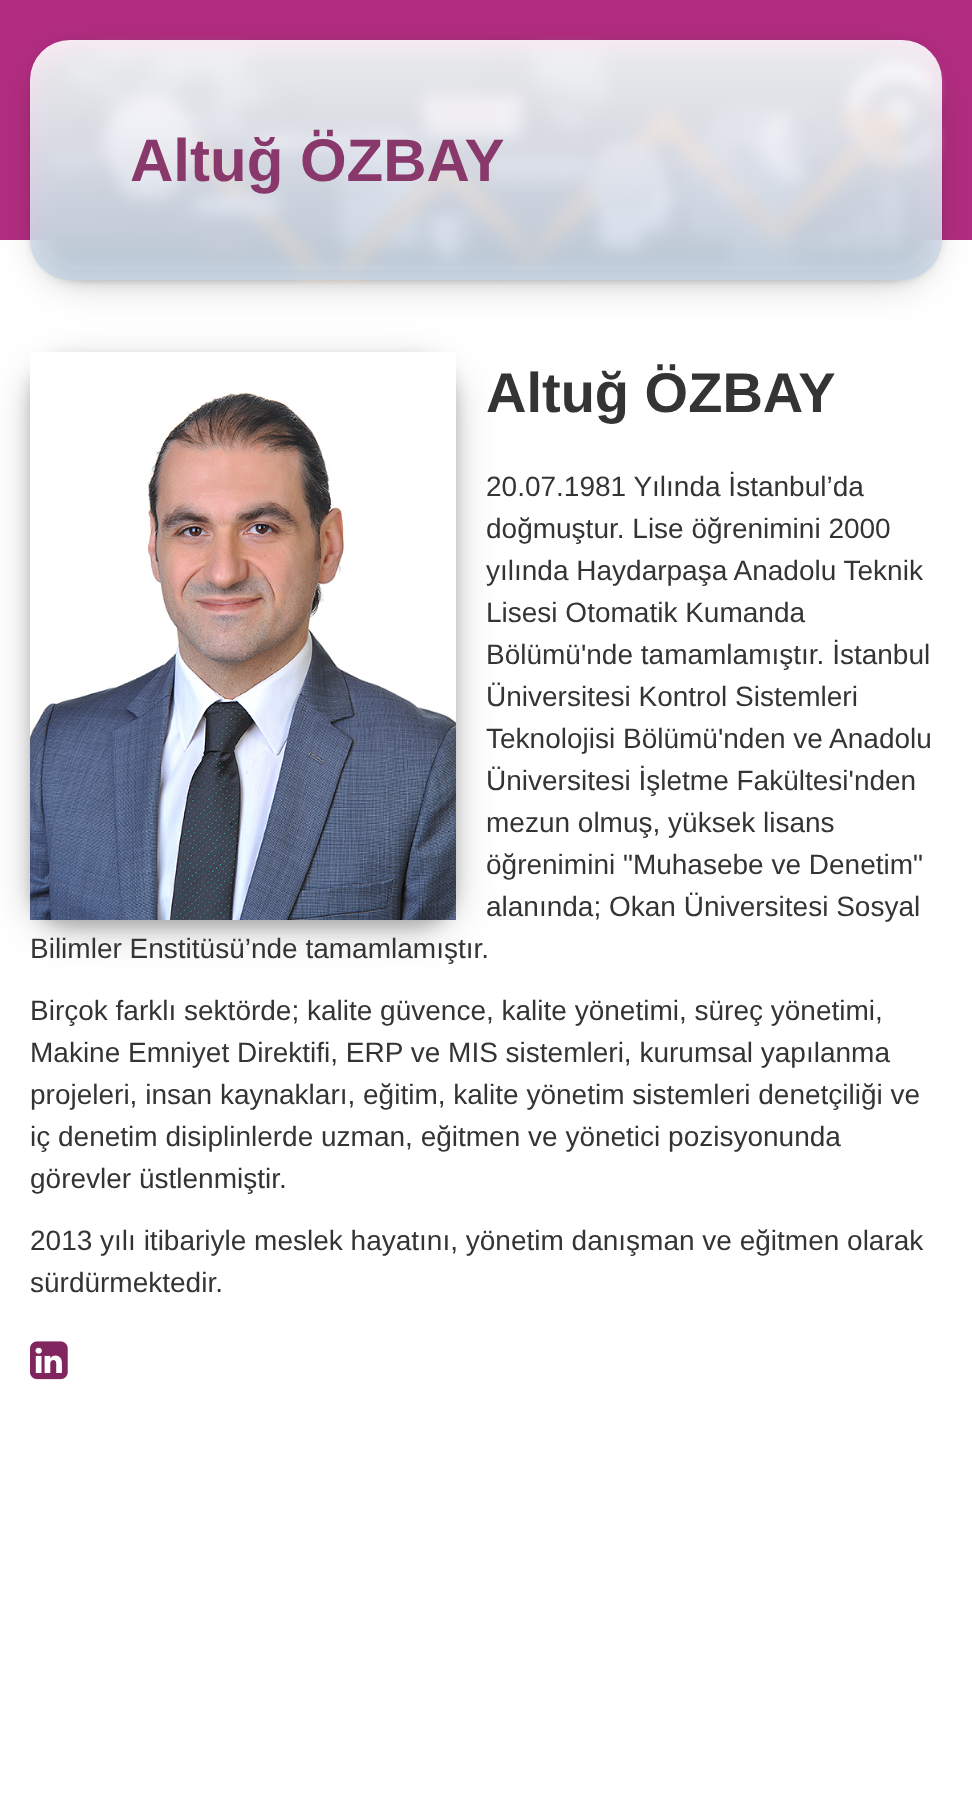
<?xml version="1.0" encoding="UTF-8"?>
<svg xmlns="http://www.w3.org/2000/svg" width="972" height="1800">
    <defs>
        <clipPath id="clip1"><path d="M 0 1 H 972 V 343 H 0 Z M 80 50 H 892 C 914 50 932 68 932 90 V 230 C 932 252 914 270 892 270 H 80 C 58 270 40 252 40 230 V 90 C 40 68 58 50 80 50 Z" clip-rule="evenodd"/></clipPath>
        <filter id="blur1" x="-50%" y="-200%" width="200%" height="500%"><feGaussianBlur stdDeviation="20"/></filter>
        <clipPath id="clip2"><path d="M 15 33 H 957 V 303 H 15 Z M 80 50 H 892 C 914 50 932 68 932 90 V 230 C 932 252 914 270 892 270 H 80 C 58 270 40 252 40 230 V 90 C 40 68 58 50 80 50 Z" clip-rule="evenodd"/></clipPath>
        <filter id="blur2" x="-50%" y="-200%" width="200%" height="500%"><feGaussianBlur stdDeviation="8"/></filter>
        <linearGradient id="g1" gradientUnits="userSpaceOnUse" x1="486" y1="40" x2="486" y2="280"><stop offset="0" stop-color="#FFFFFF" stop-opacity="0.9"/><stop offset="0.25" stop-color="#F3F3F8" stop-opacity="0.9"/><stop offset="0.5" stop-color="#E5E8F1" stop-opacity="0.9"/><stop offset="0.75" stop-color="#D6DEEA" stop-opacity="0.9"/><stop offset="1" stop-color="#C6D4E2" stop-opacity="0.9"/></linearGradient>
    </defs>
    <rect width="100%" height="100%" fill="#FFFFFF"/>
    <rect x="0" y="0" width="972" height="240" fill="#B12C7F"/>
    <g clip-path="url(#clip1)">
        <rect x="40" y="62" width="892" height="220" rx="40" fill="#000000" fill-opacity="0.19" filter="url(#blur1)"/>
    </g>
    <g clip-path="url(#clip2)">
        <rect x="40" y="58" width="892" height="220" rx="40" fill="#000000" fill-opacity="0.2" filter="url(#blur2)"/>
    </g>
    <image x="27" y="36" width="920" height="249" href="img_01.png"/>
    <rect x="30" y="40" width="912" height="240" rx="40" fill="url(#g1)"/>
    <text x="130" y="181" font-family="Liberation Sans" font-size="60" font-weight="700" fill="#89386C">Altuğ ÖZBAY</text>
    <rect x="30" y="364" width="426" height="568" rx="40" fill="#000000" fill-opacity="0.19" filter="url(#blur1)"/>
    <rect x="30" y="360" width="426" height="568" rx="40" fill="#000000" fill-opacity="0.2" filter="url(#blur2)"/>
    <image x="30" y="352" width="426" height="568" href="img_02.png"/>
    <text x="486" y="412" font-family="Liberation Sans" font-size="56" font-weight="700" fill="#343434">Altuğ ÖZBAY</text>
    <text font-family="Liberation Sans" font-size="28" fill="#343434">
        <tspan x="486" y="496">20.07.1981 Yılında İstanbul’da</tspan>
        <tspan x="486" y="538">doğmuştur. Lise öğrenimini 2000</tspan>
        <tspan x="486" y="580">yılında Haydarpaşa Anadolu Teknik</tspan>
        <tspan x="486" y="622">Lisesi Otomatik Kumanda</tspan>
        <tspan x="486" y="664">Bölümü'nde tamamlamıştır. İstanbul</tspan>
        <tspan x="486" y="706">Üniversitesi Kontrol Sistemleri</tspan>
        <tspan x="486" y="748">Teknolojisi Bölümü'nden ve Anadolu</tspan>
        <tspan x="486" y="790">Üniversitesi İşletme Fakültesi'nden</tspan>
        <tspan x="486" y="832">mezun olmuş, yüksek lisans</tspan>
        <tspan x="486" y="874">öğrenimini "Muhasebe ve Denetim"</tspan>
        <tspan x="486" y="916">alanında; Okan Üniversitesi Sosyal</tspan>
    </text>
    <text x="30" y="958" font-family="Liberation Sans" font-size="28" fill="#343434">Bilimler Enstitüsü’nde tamamlamıştır.</text>
    <text font-family="Liberation Sans" font-size="28" fill="#343434">
        <tspan x="30" y="1020">Birçok farklı sektörde; kalite güvence, kalite yönetimi, süreç yönetimi,</tspan>
        <tspan x="30" y="1062">Makine Emniyet Direktifi, ERP ve MIS sistemleri, kurumsal yapılanma</tspan>
        <tspan x="30" y="1104">projeleri, insan kaynakları, eğitim, kalite yönetim sistemleri denetçiliği ve</tspan>
        <tspan x="30" y="1146">iç denetim disiplinlerde uzman, eğitmen ve yönetici pozisyonunda</tspan>
        <tspan x="30" y="1188">görevler üstlenmiştir.</tspan>
    </text>
    <text font-family="Liberation Sans" font-size="28" fill="#343434">
        <tspan x="30" y="1250">2013 yılı itibariyle meslek hayatını, yönetim danışman ve eğitmen olarak</tspan>
        <tspan x="30" y="1292">sürdürmektedir.</tspan>
    </text>
    <image x="30" y="1341" width="38" height="39" href="img_03.png"/>
</svg>
